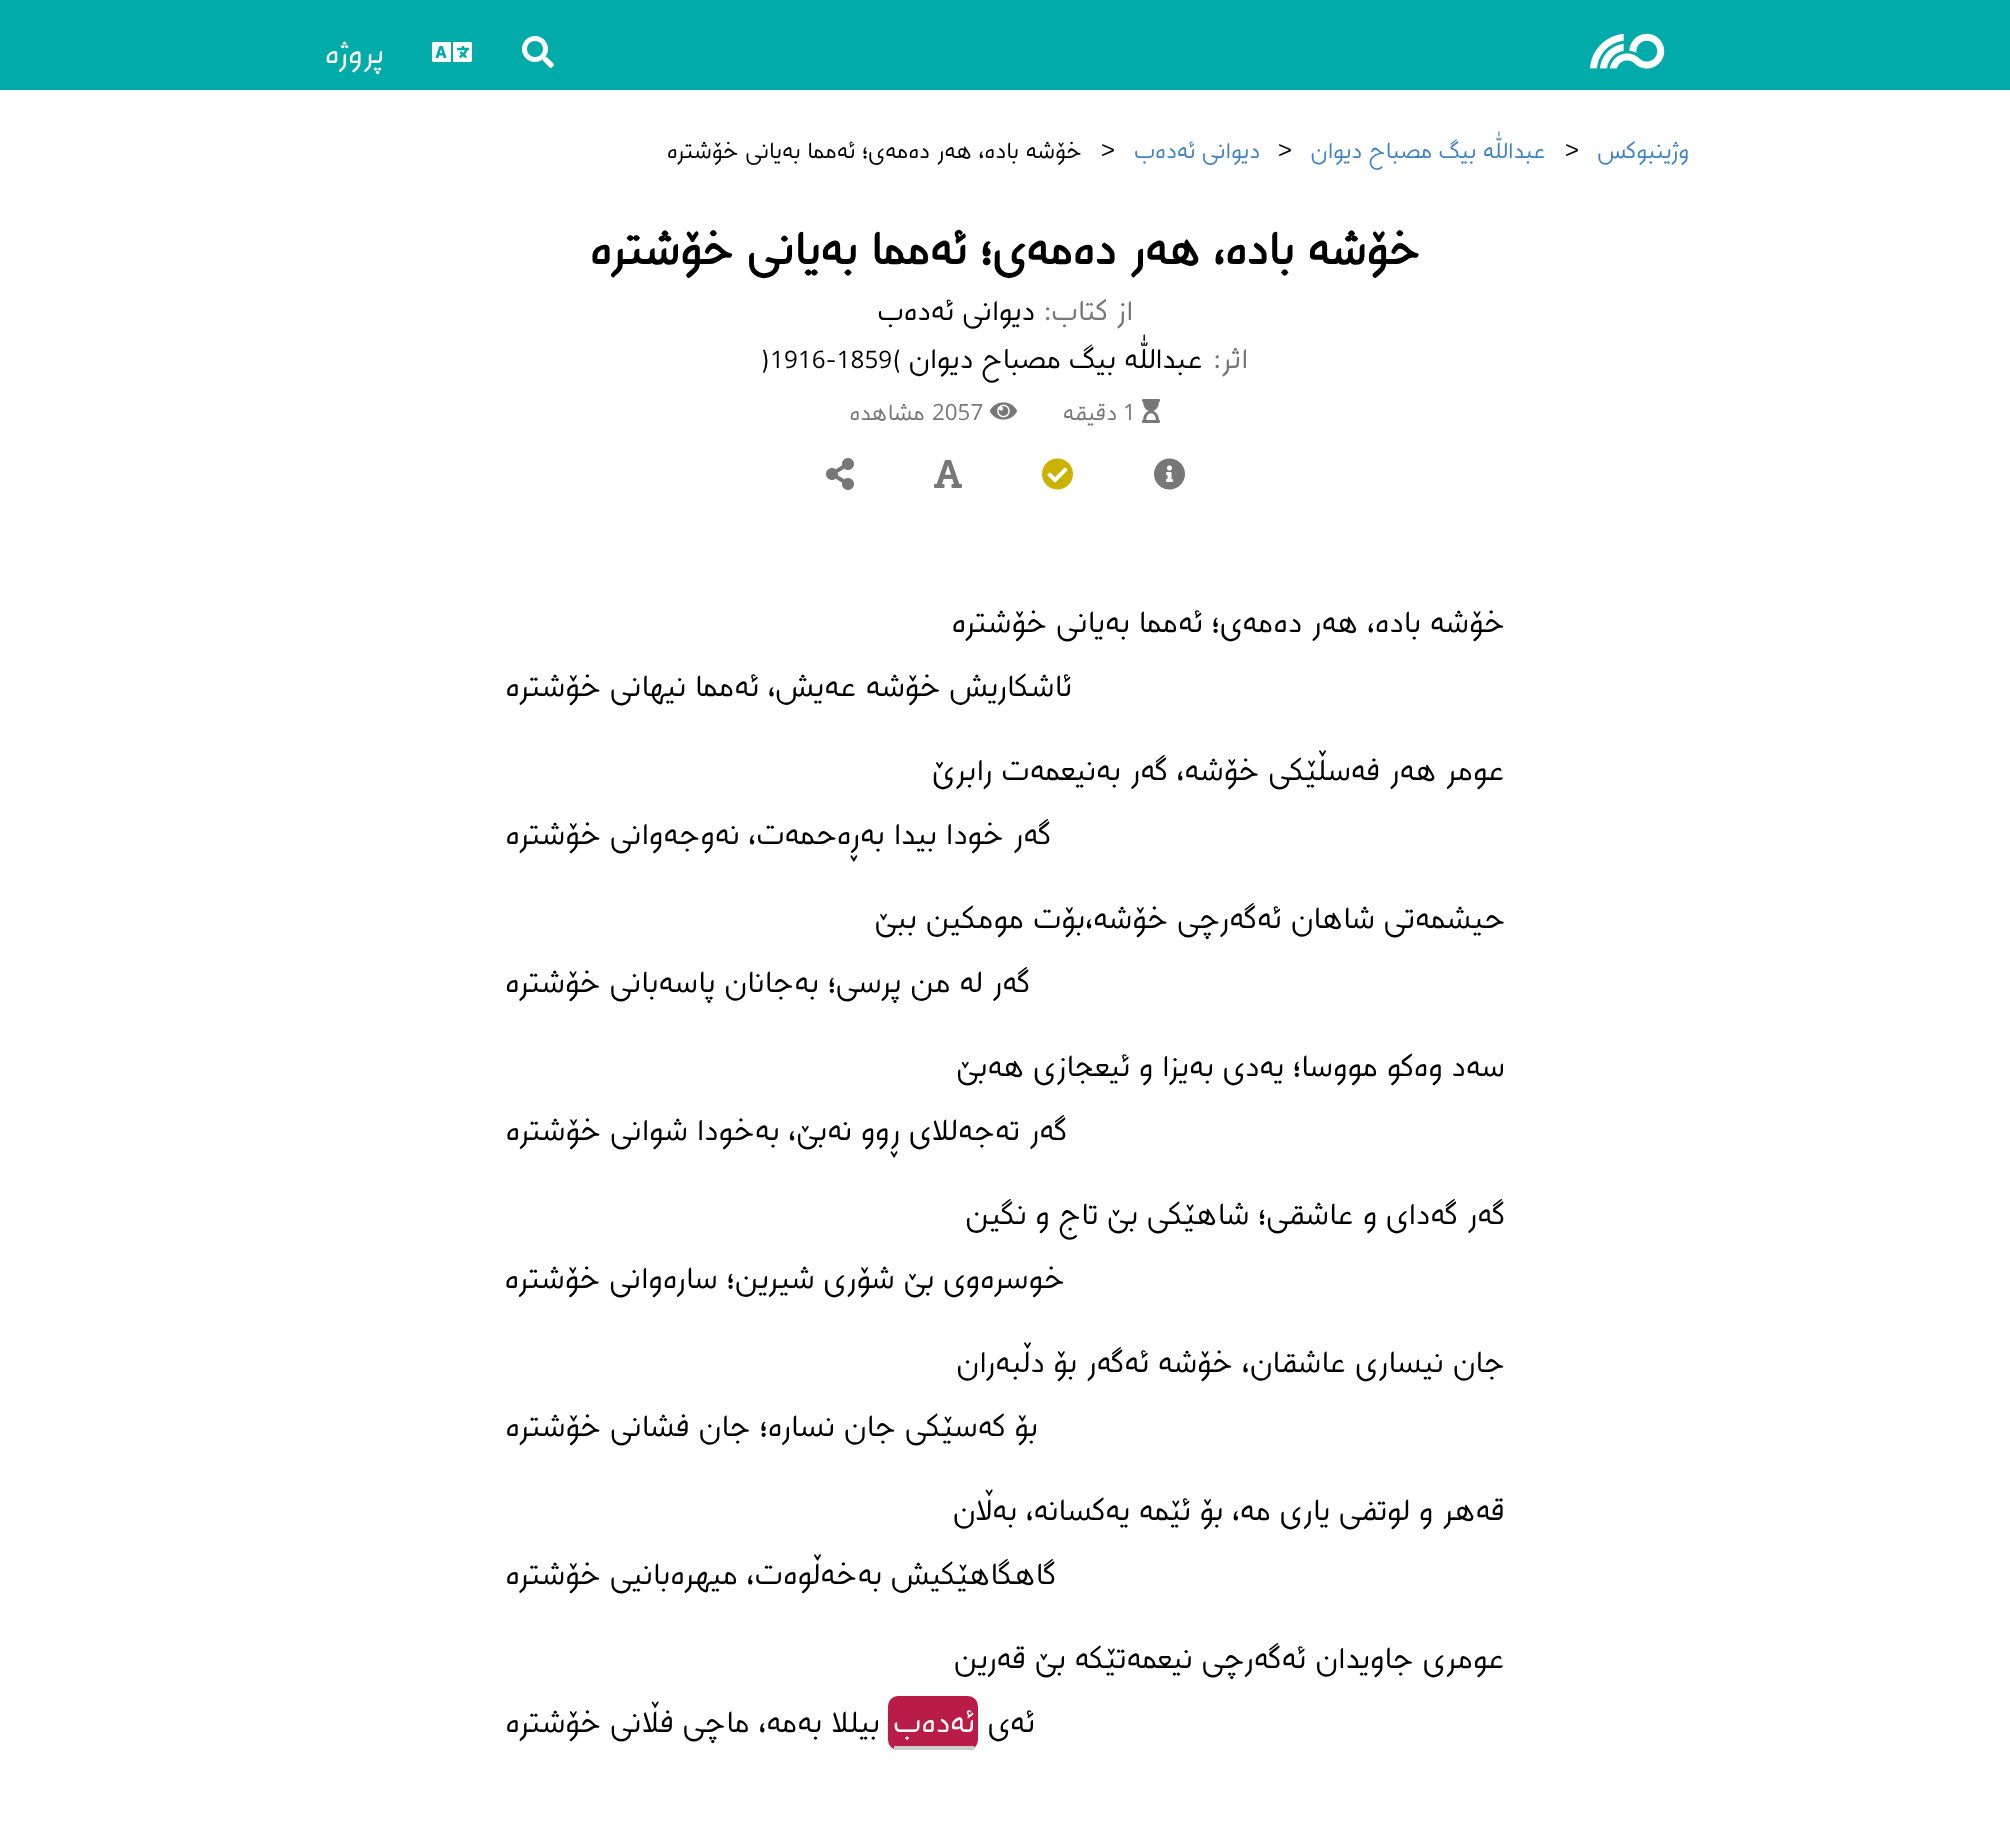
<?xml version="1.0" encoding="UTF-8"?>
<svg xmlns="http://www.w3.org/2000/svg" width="2010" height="1839">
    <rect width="100%" height="100%" fill="#FFFFFF"/>
    <rect x="0" y="0" width="2010" height="90" fill="#00ABA9"/>
    <image x="1590" y="33" width="75" height="36" href="img_01.png"/>
    <image x="522" y="36" width="32" height="32" href="img_02.png"/>
    <image x="432" y="42" width="40" height="20" href="img_03.png"/>
    <text x="384" y="63" font-family="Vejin" font-size="32" direction="rtl" fill="#FFFFFF">پروژه</text>
    <text x="1689" y="158" font-family="Vejin" font-size="24" direction="rtl" fill="#4183C4">وژینبوکس</text>
    <text x="1565" y="158" font-family="Liberation Sans" font-size="24" fill="#000000">&gt;</text>
    <text x="1546" y="158" font-family="Vejin" font-size="24" direction="rtl" fill="#4183C4">عبدالله بیگ مصباح دیوان</text>
    <text x="1278" y="158" font-family="Liberation Sans" font-size="24" fill="#000000">&gt;</text>
    <text x="1260" y="158" font-family="Vejin" font-size="24" direction="rtl" fill="#4183C4">دیوانی ئەدەب</text>
    <text x="1101" y="158" font-family="Liberation Sans" font-size="24" fill="#000000">&gt;</text>
    <text x="1082" y="158" font-family="Vejin" font-size="24" direction="rtl" fill="#000000">خۆشە بادە، هەر دەمەی؛ ئەمما بەیانی خۆشترە</text>
    <text x="1420" y="264" font-family="Vejin" font-size="48" font-weight="700" direction="rtl" fill="#000000">خۆشە بادە، هەر دەمەی؛ ئەمما بەیانی خۆشترە</text>
    <text x="1133" y="320" font-family="Vejin" font-size="30" direction="rtl" fill="#777777">از کتاب:</text>
    <text x="1035" y="320" font-family="Vejin" font-size="30" direction="rtl" fill="#000000">دیوانی ئەدەب</text>
    <text x="1248" y="368" font-family="Vejin" font-size="30" direction="rtl" fill="#777777">اثر:</text>
    <text x="1203" y="368" font-family="Vejin" font-size="30" direction="rtl" fill="#000000">عبدالله بیگ مصباح دیوان</text>
    <text x="762" y="368" font-family="Vejin" font-size="26" fill="#000000">)1916-1859(</text>
    <image x="1142" y="399" width="18" height="24" href="img_04.png"/>
    <text x="1123" y="420" font-family="Vejin" font-size="24" fill="#777777">1</text>
    <text x="1117" y="420" font-family="Vejin" font-size="24" direction="rtl" fill="#777777">دقیقه</text>
    <image x="990" y="402" width="27" height="18" href="img_05.png"/>
    <text x="932" y="420" font-family="Vejin" font-size="24" fill="#777777">2057</text>
    <text x="925" y="420" font-family="Vejin" font-size="24" direction="rtl" fill="#777777">مشاهده</text>
    <image x="1154" y="458" width="31" height="32" href="img_06.png"/>
    <image x="1042" y="458" width="31" height="32" href="img_07.png"/>
    <image x="934" y="460" width="28" height="28" href="img_08.png"/>
    <image x="826" y="458" width="28" height="32" href="img_09.png"/>
    <text x="1505" y="632" font-family="Vejin" font-size="32" direction="rtl" fill="#000000">خۆشە بادە، هەر دەمەی؛ ئەمما بەیانی خۆشترە</text>
    <text x="1072" y="696" font-family="Vejin" font-size="32" direction="rtl" fill="#000000">ئاشکاریش خۆشە عەیش، ئەمما نیهانی خۆشترە</text>
    <text x="1505" y="780" font-family="Vejin" font-size="32" direction="rtl" fill="#000000">عومر هەر فەسڵێکی خۆشە، گەر بەنیعمەت رابرێ</text>
    <text x="1051" y="844" font-family="Vejin" font-size="32" direction="rtl" fill="#000000">گەر خودا بیدا بەڕەحمەت، نەوجەوانی خۆشترە</text>
    <text x="1505" y="928" font-family="Vejin" font-size="32" direction="rtl" fill="#000000">حیشمەتی شاهان ئەگەرچی خۆشە،بۆت مومکین ببێ</text>
    <text x="1030" y="992" font-family="Vejin" font-size="32" direction="rtl" fill="#000000">گەر لە من پرسی؛ بەجانان پاسەبانی خۆشترە</text>
    <text x="1505" y="1076" font-family="Vejin" font-size="32" direction="rtl" fill="#000000">سەد وەکو مووسا؛ یەدی بەیزا و ئیعجازی هەبێ</text>
    <text x="1067" y="1140" font-family="Vejin" font-size="32" direction="rtl" fill="#000000">گەر تەجەللای ڕوو نەبێ، بەخودا شوانی خۆشترە</text>
    <text x="1505" y="1224" font-family="Vejin" font-size="32" direction="rtl" fill="#000000">گەر گەدای و عاشقی؛ شاهێکی بێ تاج و نگین</text>
    <text x="1065" y="1288" font-family="Vejin" font-size="32" direction="rtl" fill="#000000">خوسرەوی بێ شۆری شیرین؛ سارەوانی خۆشترە</text>
    <text x="1505" y="1372" font-family="Vejin" font-size="32" direction="rtl" fill="#000000">جان نیساری عاشقان، خۆشە ئەگەر بۆ دڵبەران</text>
    <text x="1038" y="1436" font-family="Vejin" font-size="32" direction="rtl" fill="#000000">بۆ کەسێکی جان نسارە؛ جان فشانی خۆشترە</text>
    <text x="1505" y="1520" font-family="Vejin" font-size="32" direction="rtl" fill="#000000">قەهر و لوتفی یاری مە، بۆ ئێمە یەکسانە، بەڵان</text>
    <text x="1056" y="1584" font-family="Vejin" font-size="32" direction="rtl" fill="#000000">گاهگاهێکیش بەخەڵوەت، میهرەبانیی خۆشترە</text>
    <text x="1505" y="1668" font-family="Vejin" font-size="32" direction="rtl" fill="#000000">عومری جاویدان ئەگەرچی نیعمەتێکە بێ قەرین</text>
    <text x="1035" y="1732" font-family="Vejin" font-size="32" direction="rtl" fill="#000000">ئەی</text>
    <rect x="888" y="1696" width="90" height="54" rx="10" fill="#B91D47"/>
    <text x="975" y="1732" font-family="Vejin" font-size="32" direction="rtl" fill="#FFFFFF">ئەدەب</text>
    <rect x="894" y="1746" width="80" height="4" fill="#CCCCCC"/>
    <text x="880" y="1732" font-family="Vejin" font-size="32" direction="rtl" fill="#000000">بیللا بەمە، ماچی فڵانی خۆشترە</text>
</svg>
